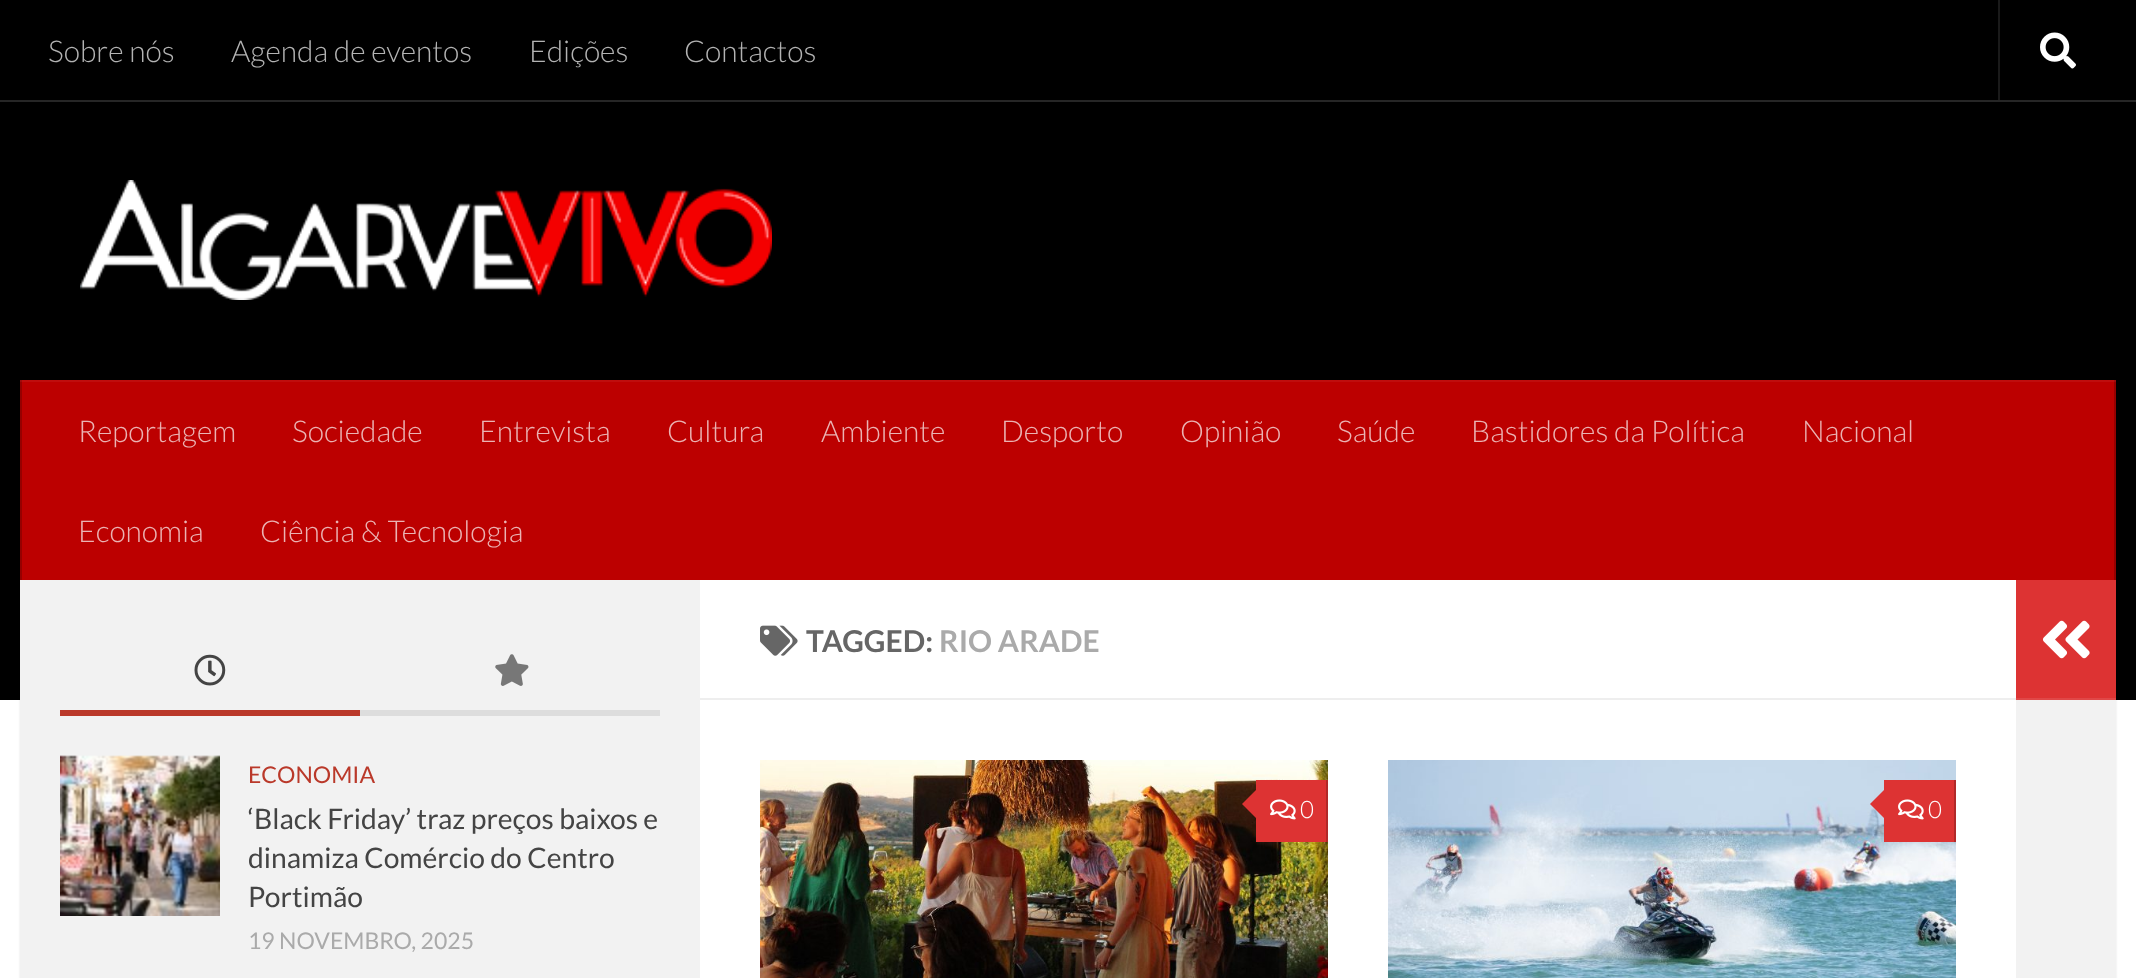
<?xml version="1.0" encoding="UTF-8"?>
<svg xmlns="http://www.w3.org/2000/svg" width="2136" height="978">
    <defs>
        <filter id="blur1" x="-50%" y="-200%" width="200%" height="500%"><feGaussianBlur stdDeviation="1"/></filter>
    </defs>
    <rect width="100%" height="100%" fill="#FFFFFF"/>
    <rect x="20" y="582" width="2096" height="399" fill="#000000" fill-opacity="0.1" filter="url(#blur1)"/>
    <rect x="0" y="0" width="2136" height="700" fill="#000000"/>
    <rect x="0" y="100" width="2136" height="2" fill="#262626"/>
    <text x="48" y="62" font-family="Lato" font-size="30" font-weight="300" fill="#B3B3B3">Sobre nós</text>
    <text x="231" y="62" font-family="Lato" font-size="30" font-weight="300" fill="#B3B3B3">Agenda de eventos</text>
    <text x="529" y="62" font-family="Lato" font-size="30" font-weight="300" fill="#B3B3B3">Edições</text>
    <text x="684" y="62" font-family="Lato" font-size="30" font-weight="300" fill="#B3B3B3">Contactos</text>
    <rect x="1998" y="0" width="2" height="100" fill="#1A1A1A"/>
    <image x="2040" y="32" width="36" height="37" href="img_01.png"/>
    <image x="80" y="180" width="692" height="120" href="img_02.png"/>
    <rect x="22" y="382" width="2092" height="198" fill="#BC0000"/>
    <rect x="20" y="380" width="2096" height="2" fill="#BF0D0D"/>
    <rect x="2114" y="380" width="2" height="200" fill="#960000"/>
    <rect x="2114" y="380" width="2" height="2" fill="#9B0D0D"/>
    <rect x="20" y="380" width="2" height="200" fill="#960000"/>
    <rect x="20" y="380" width="2" height="2" fill="#9B0D0D"/>
    <text x="78" y="442" font-family="Lato" font-size="30" font-weight="300" fill="#EBB3B3">Reportagem</text>
    <text x="292" y="442" font-family="Lato" font-size="30" font-weight="300" fill="#EBB3B3">Sociedade</text>
    <text x="479" y="442" font-family="Lato" font-size="30" font-weight="300" fill="#EBB3B3">Entrevista</text>
    <text x="667" y="442" font-family="Lato" font-size="30" font-weight="300" fill="#EBB3B3">Cultura</text>
    <text x="821" y="442" font-family="Lato" font-size="30" font-weight="300" fill="#EBB3B3">Ambiente</text>
    <text x="1001" y="442" font-family="Lato" font-size="30" font-weight="300" fill="#EBB3B3">Desporto</text>
    <text x="1180" y="442" font-family="Lato" font-size="30" font-weight="300" fill="#EBB3B3">Opinião</text>
    <text x="1337" y="442" font-family="Lato" font-size="30" font-weight="300" fill="#EBB3B3">Saúde</text>
    <text x="1471" y="442" font-family="Lato" font-size="30" font-weight="300" fill="#EBB3B3">Bastidores da Política</text>
    <text x="1802" y="442" font-family="Lato" font-size="30" font-weight="300" fill="#EBB3B3">Nacional</text>
    <text x="78" y="542" font-family="Lato" font-size="30" font-weight="300" fill="#EBB3B3">Economia</text>
    <text x="260" y="542" font-family="Lato" font-size="30" font-weight="300" fill="#EBB3B3">Ciência &amp; Tecnologia</text>
    <rect x="700" y="580" width="1316" height="398" fill="#FFFFFF"/>
    <rect x="20" y="580" width="680" height="398" fill="#F2F2F2"/>
    <rect x="700" y="698" width="1316" height="2" fill="#EEEEEE"/>
    <image x="760" y="625" width="38" height="31" href="img_03.png"/>
    <text x="806" y="652" font-family="Lato" font-size="30" font-weight="700" fill="#666666">TAGGED:</text>
    <text x="939" y="652" font-family="Lato" font-size="30" font-weight="700" fill="#AAAAAA">RIO ARADE</text>
    <image x="760" y="760" width="568" height="218" href="img_04.png"/>
    <rect x="1256" y="780" width="70" height="62" fill="#DD3333"/>
    <rect x="1326" y="780" width="2" height="62" fill="#B12929"/>
    <path d="M 1260 786 V 822 L 1242 804 Z" fill="#DD3333"/>
    <image x="1270" y="799" width="26" height="21" href="img_05.png"/>
    <text x="1300" y="818" font-family="Lato" font-size="24" font-weight="300" fill="#FFFFFF">0</text>
    <image x="1388" y="760" width="568" height="218" href="img_06.png"/>
    <rect x="1884" y="780" width="70" height="62" fill="#DD3333"/>
    <rect x="1954" y="780" width="2" height="62" fill="#B12929"/>
    <path d="M 1888 786 V 822 L 1870 804 Z" fill="#DD3333"/>
    <image x="1898" y="799" width="26" height="21" href="img_05.png"/>
    <text x="1928" y="818" font-family="Lato" font-size="24" font-weight="300" fill="#FFFFFF">0</text>
    <rect x="2016" y="580" width="100" height="118" fill="#DD3333"/>
    <rect x="2016" y="698" width="100" height="2" fill="#E04747"/>
    <image x="2042" y="620" width="48" height="39" href="img_07.png"/>
    <rect x="360" y="710" width="300" height="6" fill="#DDDDDD"/>
    <rect x="60" y="710" width="300" height="6" fill="#BA392A"/>
    <image x="194" y="654" width="32" height="32" href="img_08.png"/>
    <image x="495" y="654" width="34" height="32" href="img_09.png"/>
    <image x="60" y="755" width="160" height="161" href="img_10.png"/>
    <text x="248" y="783" font-family="Lato" font-size="23" fill="#BA392A">ECONOMIA</text>
    <text font-family="Lato" font-size="28.25" fill="#444444">
        <tspan x="248" y="829">‘Black Friday’ traz preços baixos e</tspan>
        <tspan x="248" y="868">dinamiza Comércio do Centro</tspan>
        <tspan x="248" y="907">Portimão</tspan>
    </text>
    <text x="248" y="949" font-family="Lato" font-size="23" fill="#AAAAAA">19 NOVEMBRO, 2025</text>
    <rect x="2016" y="700" width="100" height="278" fill="#F2F2F2"/>
</svg>
